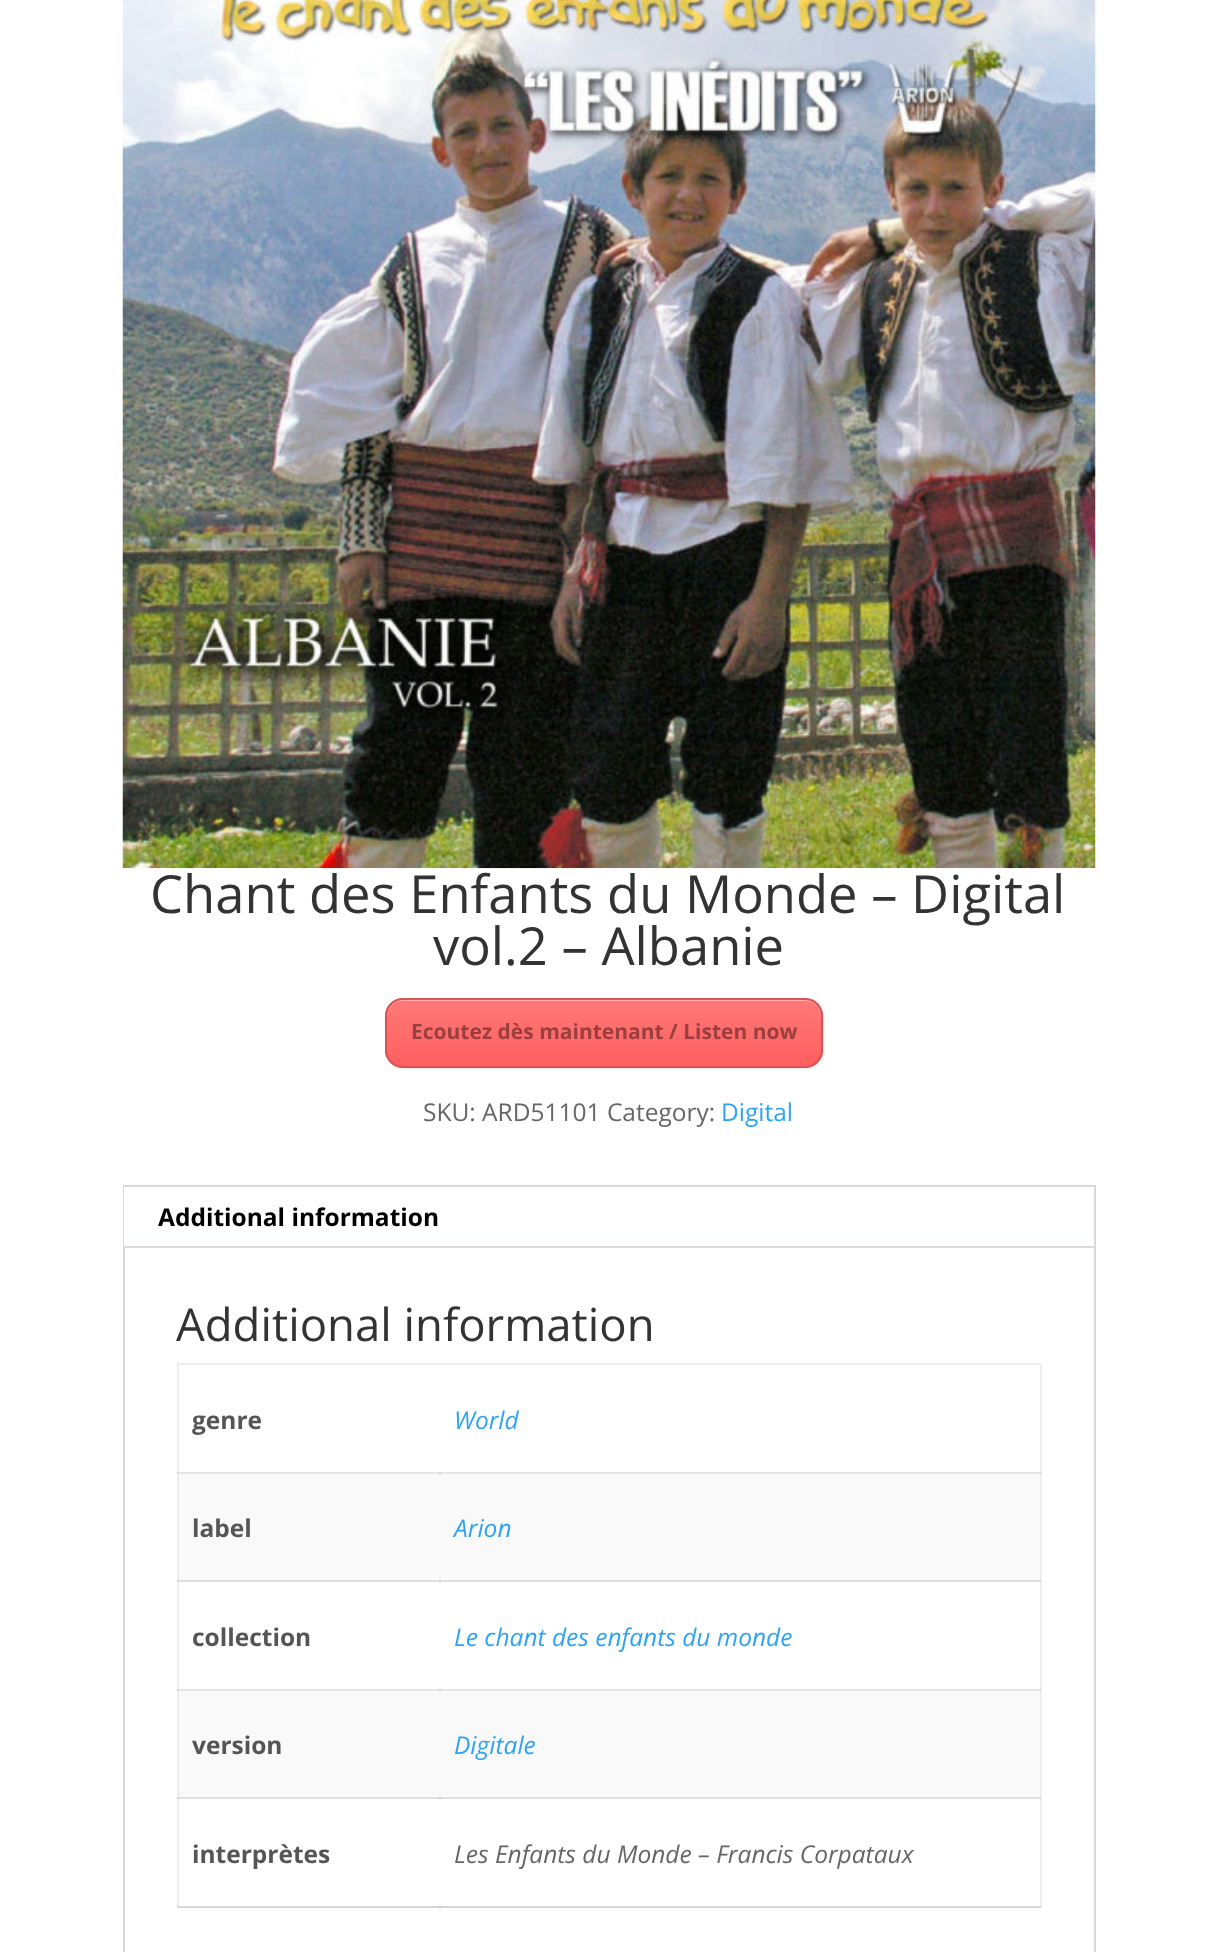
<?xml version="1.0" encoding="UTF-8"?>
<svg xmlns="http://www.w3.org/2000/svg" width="1216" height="1952">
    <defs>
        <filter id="blur1" x="-50%" y="-200%" width="200%" height="500%"><feGaussianBlur stdDeviation="1"/></filter>
        <clipPath id="clip1"><rect x="385" y="998" width="438" height="70" rx="18"/></clipPath>
        <linearGradient id="g1" gradientUnits="userSpaceOnUse" x1="604" y1="999" x2="604" y2="1066"><stop offset="0" stop-color="#FF7979"/><stop offset="1" stop-color="#FF5F5F"/></linearGradient>
    </defs>
    <rect width="100%" height="100%" fill="#FFFFFF"/>
    <rect x="177" y="1472" width="864" height="2" fill="#E6E6E6"/>
    <rect x="439" y="1472" width="2" height="2" fill="#CFCFCF"/>
    <rect x="177" y="1689" width="864" height="2" fill="#E6E6E6"/>
    <rect x="439" y="1689" width="2" height="2" fill="#CFCFCF"/>
    <image x="122" y="0" width="974" height="869" href="img_01.png"/>
    <text x="150" y="913" font-family="Open Sans" font-size="52.5" fill="#333333">Chant des Enfants du Monde – Digital</text>
    <text x="433" y="965" font-family="Open Sans" font-size="52.5" fill="#333333">vol.2 – Albanie</text>
    <rect x="387" y="999" width="437" height="70" rx="18" fill="#000000" fill-opacity="0.1" filter="url(#blur1)"/>
    <g clip-path="url(#clip1)">
        <rect x="385" y="999" width="438" height="67" fill="url(#g1)"/>
    </g>
    <path d="M 402 1001 H 805 C 814 1001 821 1008 821 1017 V 1015 C 821 1006 814 999 805 999 H 403 C 394 999 387 1006 387 1015 V 1017 C 387 1008 394 1001 402 1001 Z" fill="#FFFFFF" fill-opacity="0.4"/>
    <rect x="386" y="999" width="436" height="68" rx="17" fill="none" stroke="#D85353" stroke-width="2"/>
    <text x="411" y="1039" font-family="Open Sans" font-size="21" font-weight="700" fill="#9A3E3E">Ecoutez dès maintenant / Listen now</text>
    <text x="423" y="1121" font-family="Open Sans" font-size="24.5" fill="#666666">SKU: ARD51101 Category:</text>
    <text x="721" y="1121" font-family="Open Sans" font-size="24.5" fill="#2EA3F2">Digital</text>
    <rect x="124" y="1186" width="971" height="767" fill="none" stroke="#D9D9D9" stroke-width="2"/>
    <rect x="124" y="1187" width="1" height="59" fill="#FFFFFF"/>
    <rect x="124" y="1246" width="970" height="2" fill="#E0DADF"/>
    <text x="158" y="1226" font-family="Open Sans" font-size="24.5" font-weight="700" fill="#000000">Additional information</text>
    <text x="176" y="1341" font-family="Open Sans" font-size="45.5" fill="#333333">Additional information</text>
    <rect x="177" y="1363" width="864" height="2" fill="#EEEEEE"/>
    <rect x="1040" y="1363" width="2" height="545" fill="#EEEEEE"/>
    <rect x="1040" y="1472" width="1" height="2" fill="#D6D6D6"/>
    <rect x="1040" y="1580" width="1" height="2" fill="#D6D6D6"/>
    <rect x="1040" y="1689" width="1" height="2" fill="#D6D6D6"/>
    <rect x="1040" y="1797" width="1" height="2" fill="#D6D6D6"/>
    <rect x="177" y="1906" width="864" height="2" fill="#D6D6D6"/>
    <rect x="177" y="1580" width="863" height="2" fill="#E0E0E0"/>
    <rect x="177" y="1797" width="863" height="2" fill="#E0E0E0"/>
    <rect x="177" y="1363" width="2" height="545" fill="#EEEEEE"/>
    <rect x="177" y="1472" width="2" height="2" fill="#D6D6D6"/>
    <rect x="177" y="1580" width="2" height="2" fill="#D6D6D6"/>
    <rect x="177" y="1689" width="2" height="2" fill="#D6D6D6"/>
    <rect x="177" y="1797" width="2" height="2" fill="#D6D6D6"/>
    <rect x="177" y="1906" width="2" height="2" fill="#D6D6D6"/>
    <text x="192" y="1429" font-family="Open Sans" font-size="24.5" font-weight="700" fill="#555555">genre</text>
    <text x="454" y="1429" font-family="Open Sans" font-size="24.5" font-style="italic" fill="#2EA3F2">World</text>
    <rect x="179" y="1474" width="861" height="106" fill="#F9F9F9"/>
    <text x="192" y="1537" font-family="Open Sans" font-size="24.5" font-weight="700" fill="#555555">label</text>
    <rect x="439" y="1580" width="2" height="2" fill="#CACACA"/>
    <text x="454" y="1537" font-family="Open Sans" font-size="24.5" font-style="italic" fill="#2EA3F2">Arion</text>
    <text x="192" y="1646" font-family="Open Sans" font-size="24.5" font-weight="700" fill="#555555">collection</text>
    <text x="454" y="1646" font-family="Open Sans" font-size="24.5" font-style="italic" fill="#2EA3F2">Le chant des enfants du monde</text>
    <rect x="179" y="1691" width="861" height="106" fill="#F9F9F9"/>
    <text x="192" y="1754" font-family="Open Sans" font-size="24.5" font-weight="700" fill="#555555">version</text>
    <rect x="439" y="1797" width="2" height="2" fill="#CACACA"/>
    <text x="454" y="1754" font-family="Open Sans" font-size="24.5" font-style="italic" fill="#2EA3F2">Digitale</text>
    <text x="192" y="1863" font-family="Open Sans" font-size="24.5" font-weight="700" fill="#555555">interprètes</text>
    <rect x="439" y="1906" width="2" height="2" fill="#C1C1C1"/>
    <text x="454" y="1863" font-family="Open Sans" font-size="24.5" font-style="italic" fill="#666666">Les Enfants du Monde – Francis Corpataux</text>
</svg>
